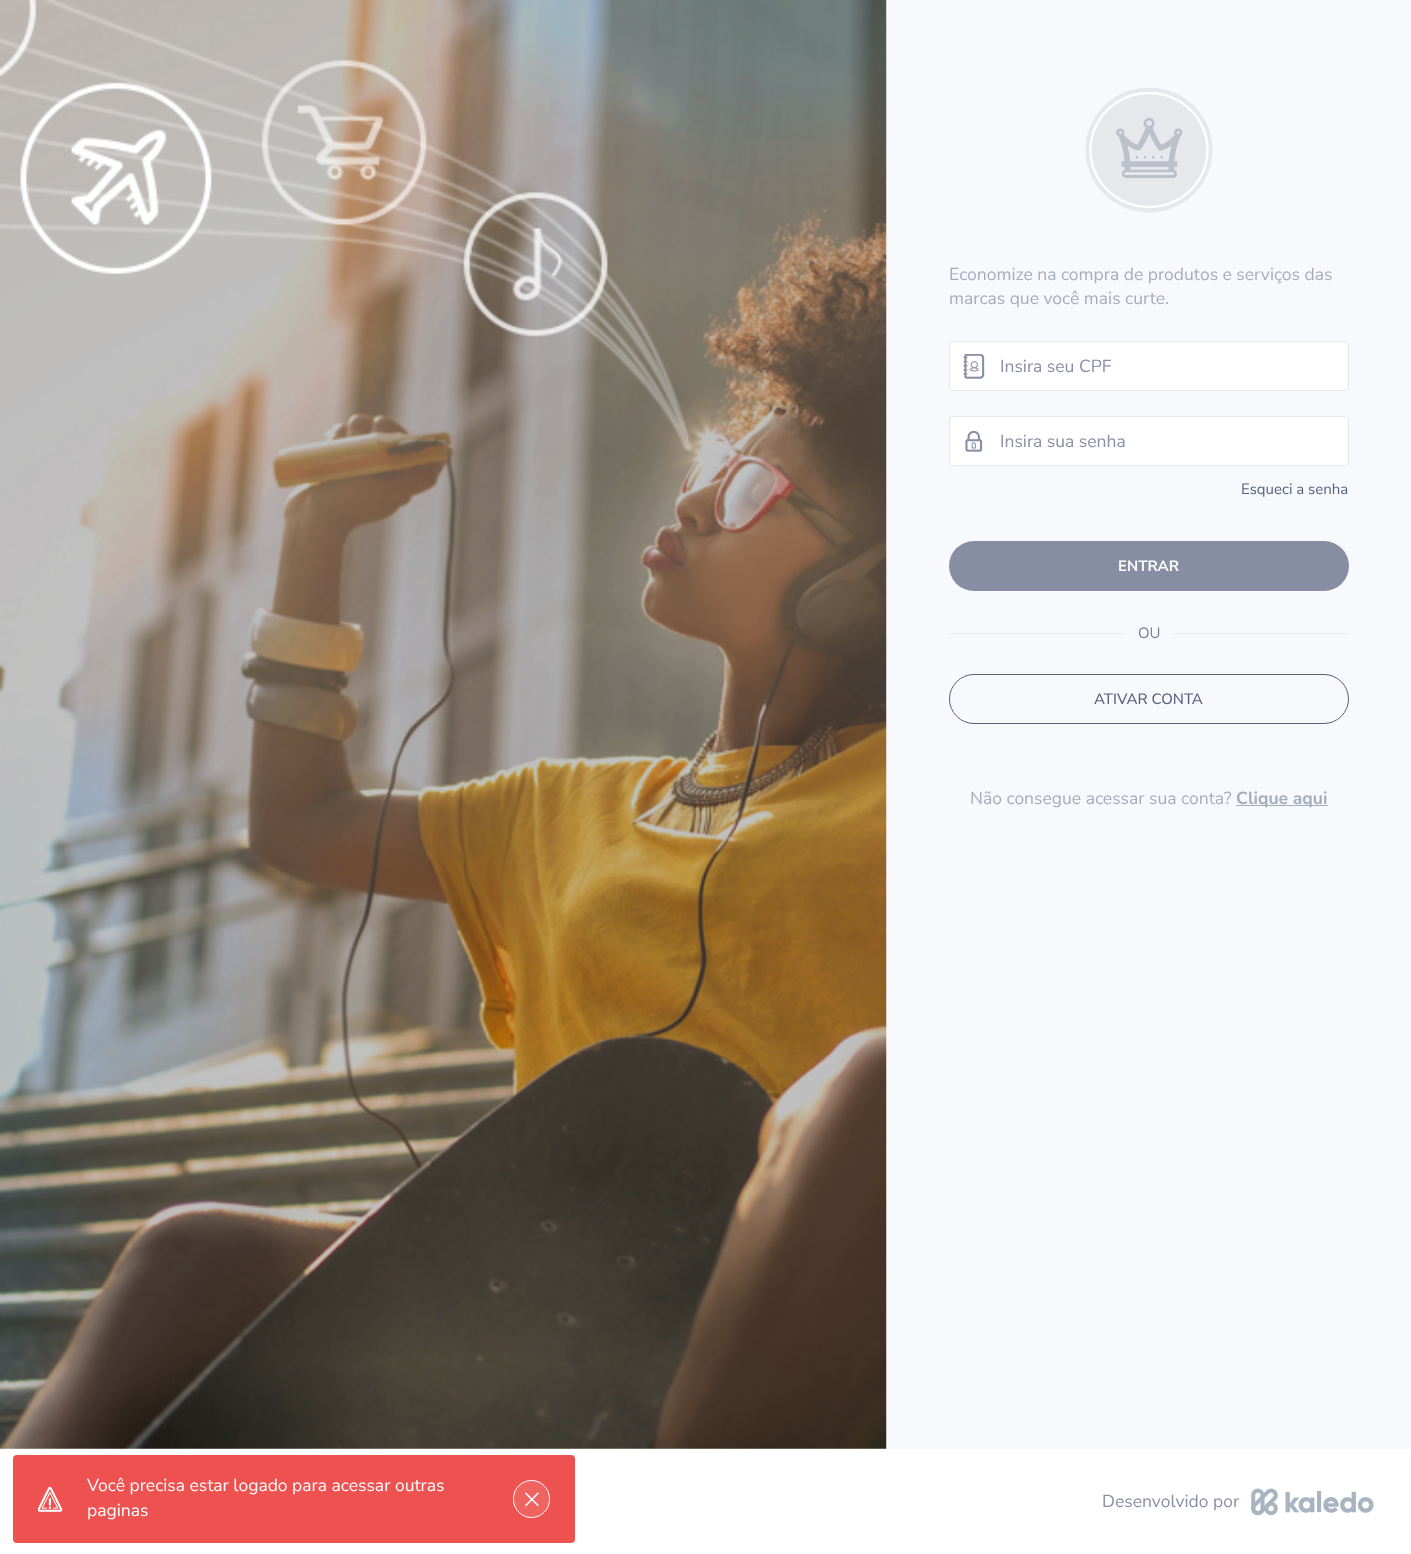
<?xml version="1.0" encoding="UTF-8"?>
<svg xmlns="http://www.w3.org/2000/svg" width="1411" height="1554">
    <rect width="100%" height="100%" fill="#FFFFFF"/>
    <rect x="13" y="1455" width="562" height="88" rx="4" fill="#EE5250"/>
    <image x="38" y="1487" width="25" height="25" href="img_01.png"/>
    <text font-family="Nunito Sans" font-size="17.5" fill="#FDFDFE">
        <tspan x="87" y="1491">Você precisa estar logado para acessar outras</tspan>
        <tspan x="87" y="1516">paginas</tspan>
    </text>
    <rect x="513.5" y="1480.5" width="36" height="37" rx="18" fill="#EF6361" stroke="#FFFFFF"/>
    <image x="525" y="1492" width="14" height="15" href="img_02.png"/>
    <rect x="886" y="0" width="525" height="1449" fill="#F8F9FD"/>
    <image x="0" y="0" width="887" height="1449" href="img_03.png"/>
    <image x="1085" y="88" width="128" height="125" href="img_04.png"/>
    <text font-family="Nunito Sans" font-size="17.5" fill="#A7ACBD">
        <tspan x="949" y="280">Economize na compra de produtos e serviços das</tspan>
        <tspan x="949" y="304">marcas que você mais curte.</tspan>
    </text>
    <rect x="949.5" y="341.5" width="399" height="49" rx="3.5" fill="#FFFFFF" stroke="#E7E8ED"/>
    <image x="963" y="354" width="22" height="25" href="img_05.png"/>
    <text x="1000" y="372" font-family="Nunito Sans" font-size="17.5" fill="#898FA4">Insira seu CPF</text>
    <rect x="949.5" y="416.5" width="399" height="49" rx="3.5" fill="#FFFFFF" stroke="#E7E8ED"/>
    <image x="965" y="430" width="18" height="22" href="img_06.png"/>
    <text x="1000" y="447" font-family="Nunito Sans" font-size="17.5" fill="#898FA4">Insira sua senha</text>
    <text x="1241" y="494" font-family="Nunito Sans" font-size="15" fill="#565F7D">Esqueci a senha</text>
    <rect x="949" y="541" width="400" height="50" rx="25" fill="#878DA3"/>
    <text x="1118" y="571" font-family="Nunito Sans" font-size="15" font-weight="700" fill="#FDFDFE">ENTRAR</text>
    <rect x="949" y="633" width="176" height="1" fill="#E8EAF0"/>
    <text x="1138" y="638" font-family="Nunito Sans" font-size="15" fill="#767E97">OU</text>
    <rect x="1173" y="633" width="176" height="1" fill="#E8EAF0"/>
    <rect x="949.5" y="674.5" width="399" height="49" rx="24.5" fill="none" stroke="#565F7D"/>
    <text x="1094" y="704" font-family="Nunito Sans" font-size="15" font-weight="500" fill="#565F7D">ATIVAR CONTA</text>
    <text x="970" y="804" font-family="Nunito Sans" font-size="17.5" fill="#A7ACBD">Não consegue acessar sua conta?</text>
    <rect x="1236" y="805" width="92" height="1" fill="#A7ACBD"/>
    <text x="1236" y="804" font-family="Nunito Sans" font-size="17.5" font-weight="700" fill="#A7ACBD">Clique aqui</text>
    <text x="1102" y="1507" font-family="Nunito Sans" font-size="17.5" fill="#898FA4">Desenvolvido por</text>
    <image x="1251" y="1488" width="123" height="28" href="img_07.png"/>
</svg>
